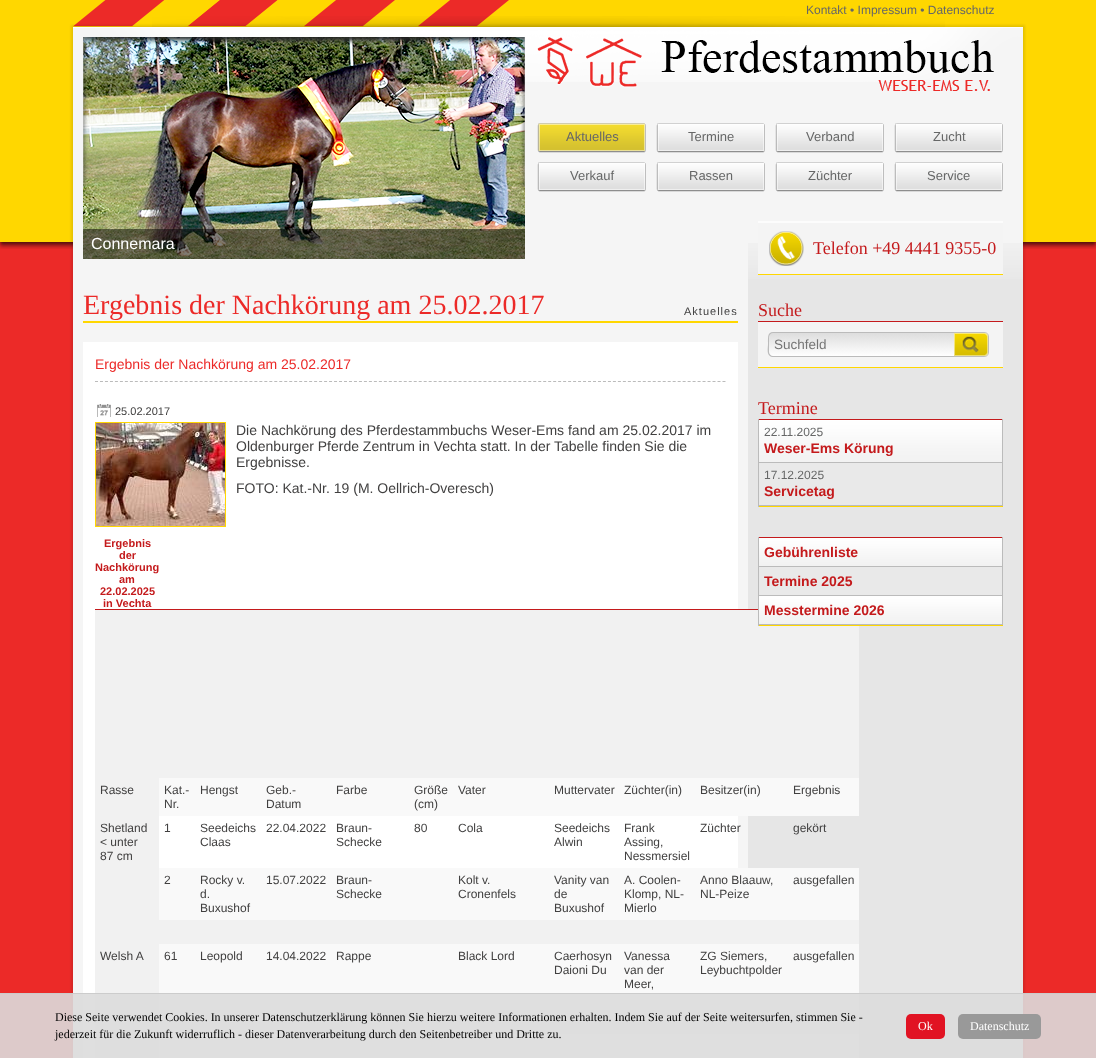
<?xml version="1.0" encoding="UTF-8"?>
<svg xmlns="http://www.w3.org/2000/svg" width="1096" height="1058">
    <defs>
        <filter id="blur1" x="-50%" y="-200%" width="200%" height="500%"><feGaussianBlur stdDeviation="1"/></filter>
        <filter id="blur2" x="-50%" y="-200%" width="200%" height="500%"><feGaussianBlur stdDeviation="0.5"/></filter>
        <clipPath id="clip1"><path d="M 773 332 H 954 V 357 H 773 C 770 357 768 355 768 352 V 337 C 768 334 770 332 773 332 Z"/></clipPath>
        <linearGradient id="g1" gradientUnits="userSpaceOnUse" x1="862" y1="333" x2="862" y2="356"><stop offset="0" stop-color="#DDDDDD"/><stop offset="1" stop-color="#FFFFFF"/></linearGradient>
    </defs>
    <rect width="100%" height="100%" fill="#EC2A28"/>
    <image x="0" y="0" width="1096" height="249" href="img_01.png"/>
    <image x="73" y="0" width="436" height="27" href="img_02.png"/>
    <rect x="71" y="25" width="954" height="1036" fill="#000000" fill-opacity="0.1" filter="url(#blur1)"/>
    <image x="152" y="16" width="793" height="11" href="img_03.png"/>
    <text x="806" y="14" font-family="Liberation Sans" font-size="12" fill="#666767">Kontakt • Impressum • Datenschutz</text>
    <rect x="73" y="82" width="950" height="976" fill="#F5F5F5"/>
    <image x="73" y="27" width="950" height="55" href="img_04.png"/>
    <image x="537" y="37" width="457" height="54" href="img_05.png"/>
    <image x="537" y="123" width="13" height="30" href="img_06.png"/>
    <image x="550" y="123" width="84" height="30" href="img_07.png"/>
    <text x="566" y="141" font-family="Liberation Sans" font-size="13" fill="#666767">Aktuelles</text>
    <image x="634" y="123" width="12" height="30" href="img_08.png"/>
    <image x="656" y="123" width="13" height="30" href="img_09.png"/>
    <image x="669" y="123" width="84" height="30" href="img_10.png"/>
    <text x="688" y="141" font-family="Liberation Sans" font-size="13" fill="#666767">Termine</text>
    <image x="753" y="123" width="12" height="30" href="img_11.png"/>
    <image x="775" y="123" width="13" height="30" href="img_09.png"/>
    <image x="788" y="123" width="84" height="30" href="img_10.png"/>
    <text x="806" y="141" font-family="Liberation Sans" font-size="13" fill="#666767">Verband</text>
    <image x="872" y="123" width="12" height="30" href="img_11.png"/>
    <image x="894" y="123" width="13" height="30" href="img_09.png"/>
    <image x="907" y="123" width="84" height="30" href="img_10.png"/>
    <text x="933" y="141" font-family="Liberation Sans" font-size="13" fill="#666767">Zucht</text>
    <image x="991" y="123" width="12" height="30" href="img_11.png"/>
    <image x="537" y="162" width="13" height="30" href="img_09.png"/>
    <image x="550" y="162" width="84" height="30" href="img_10.png"/>
    <text x="570" y="180" font-family="Liberation Sans" font-size="13" fill="#666767">Verkauf</text>
    <image x="634" y="162" width="12" height="30" href="img_11.png"/>
    <image x="656" y="162" width="13" height="30" href="img_09.png"/>
    <image x="669" y="162" width="84" height="30" href="img_10.png"/>
    <text x="689" y="180" font-family="Liberation Sans" font-size="13" fill="#666767">Rassen</text>
    <image x="753" y="162" width="12" height="30" href="img_11.png"/>
    <image x="775" y="162" width="13" height="30" href="img_09.png"/>
    <image x="788" y="162" width="84" height="30" href="img_10.png"/>
    <text x="808" y="180" font-family="Liberation Sans" font-size="13" fill="#666767">Züchter</text>
    <image x="872" y="162" width="12" height="30" href="img_11.png"/>
    <image x="894" y="162" width="13" height="30" href="img_09.png"/>
    <image x="907" y="162" width="84" height="30" href="img_10.png"/>
    <text x="927" y="180" font-family="Liberation Sans" font-size="13" fill="#666767">Service</text>
    <image x="991" y="162" width="12" height="30" href="img_11.png"/>
    <image x="83" y="37" width="442" height="222" href="img_13.png"/>
    <image x="83" y="37" width="442" height="150" href="img_12.png"/>
    <rect x="83" y="229" width="442" height="30" fill="#000000" fill-opacity="0.5"/>
    <text x="91" y="249" font-family="Liberation Sans" font-size="16" fill="#FFFFFF">Connemara</text>
    <rect x="748" y="279" width="275" height="779" fill="#E6E6E6"/>
    <rect x="83" y="321" width="655" height="2" fill="#FFD700"/>
    <text x="83" y="314" font-family="Liberation Serif" font-size="28" fill="#EC2A28">Ergebnis der Nachkörung am 25.02.2017</text>
    <text x="684" y="315" font-family="Liberation Sans" font-size="11" letter-spacing="1" fill="#414040">Aktuelles</text>
    <rect x="83" y="342" width="655" height="716" fill="#FFFFFF"/>
    <path d="M 95 381.5 H 726" fill="none" stroke="#BBBBBB" stroke-dasharray="3 1.98"/>
    <text x="95" y="369" font-family="Liberation Sans" font-size="14" fill="#EC2A28">Ergebnis der Nachkörung am 25.02.2017</text>
    <image x="97" y="404" width="14" height="13" href="img_14.png"/>
    <text x="115" y="415" font-family="Liberation Sans" font-size="11" fill="#414040">25.02.2017</text>
    <rect x="95.5" y="422.5" width="130" height="104" fill="none" stroke="#FFD700"/>
    <image x="96" y="423" width="129" height="103" href="img_15.png"/>
    <text font-family="Liberation Sans" font-size="14" fill="#414040">
        <tspan x="236" y="435">Die Nachkörung des Pferdestammbuchs Weser-Ems fand am 25.02.2017 im</tspan>
        <tspan x="236" y="451">Oldenburger Pferde Zentrum in Vechta statt. In der Tabelle finden Sie die</tspan>
        <tspan x="236" y="467">Ergebnisse.</tspan>
        <tspan x="236" y="493">FOTO: Kat.-Nr. 19 (M. Oellrich-Overesch)</tspan>
    </text>
    <rect x="95" y="609" width="663" height="1" fill="#C41A1C"/>
    <text x="104" y="547" font-family="Liberation Sans" font-size="11" font-weight="700" fill="#C41A1C">Ergebnis</text>
    <text x="119" y="559" font-family="Liberation Sans" font-size="11" font-weight="700" fill="#C41A1C">der</text>
    <text x="95" y="571" font-family="Liberation Sans" font-size="11" font-weight="700" fill="#C41A1C">Nachkörung</text>
    <text x="119" y="583" font-family="Liberation Sans" font-size="11" font-weight="700" fill="#C41A1C">am</text>
    <text x="100" y="595" font-family="Liberation Sans" font-size="11" font-weight="700" fill="#C41A1C">22.02.2025</text>
    <text x="103" y="607" font-family="Liberation Sans" font-size="11" font-weight="700" fill="#C41A1C">in Vechta</text>
    <rect x="95" y="610" width="764" height="168" fill="#F1F1F1"/>
    <rect x="159" y="778" width="700" height="38" fill="#F9F9F9"/>
    <rect x="95" y="778" width="64" height="142" fill="#F1F1F1"/>
    <text x="100" y="794" font-family="Liberation Sans" font-size="12" fill="#414040">Rasse</text>
    <text font-family="Liberation Sans" font-size="12" fill="#414040">
        <tspan x="164" y="794">Kat.-</tspan>
        <tspan x="164" y="808">Nr.</tspan>
    </text>
    <text x="200" y="794" font-family="Liberation Sans" font-size="12" fill="#414040">Hengst</text>
    <text font-family="Liberation Sans" font-size="12" fill="#414040">
        <tspan x="266" y="794">Geb.-</tspan>
        <tspan x="266" y="808">Datum</tspan>
    </text>
    <text x="336" y="794" font-family="Liberation Sans" font-size="12" fill="#414040">Farbe</text>
    <text font-family="Liberation Sans" font-size="12" fill="#414040">
        <tspan x="414" y="794">Größe</tspan>
        <tspan x="414" y="808">(cm)</tspan>
    </text>
    <text x="458" y="794" font-family="Liberation Sans" font-size="12" fill="#414040">Vater</text>
    <text x="554" y="794" font-family="Liberation Sans" font-size="12" fill="#414040">Muttervater</text>
    <text x="624" y="794" font-family="Liberation Sans" font-size="12" fill="#414040">Züchter(in)</text>
    <text x="700" y="794" font-family="Liberation Sans" font-size="12" fill="#414040">Besitzer(in)</text>
    <text x="793" y="794" font-family="Liberation Sans" font-size="12" fill="#414040">Ergebnis</text>
    <text font-family="Liberation Sans" font-size="12" fill="#414040">
        <tspan x="100" y="832">Shetland</tspan>
        <tspan x="100" y="846">&lt; unter</tspan>
        <tspan x="100" y="860">87 cm</tspan>
    </text>
    <text x="164" y="832" font-family="Liberation Sans" font-size="12" fill="#414040">1</text>
    <text font-family="Liberation Sans" font-size="12" fill="#414040">
        <tspan x="200" y="832">Seedeichs</tspan>
        <tspan x="200" y="846">Claas</tspan>
    </text>
    <text x="266" y="832" font-family="Liberation Sans" font-size="12" fill="#414040">22.04.2022</text>
    <text font-family="Liberation Sans" font-size="12" fill="#414040">
        <tspan x="336" y="832">Braun-</tspan>
        <tspan x="336" y="846">Schecke</tspan>
    </text>
    <text x="414" y="832" font-family="Liberation Sans" font-size="12" fill="#414040">80</text>
    <text x="458" y="832" font-family="Liberation Sans" font-size="12" fill="#414040">Cola</text>
    <text font-family="Liberation Sans" font-size="12" fill="#414040">
        <tspan x="554" y="832">Seedeichs</tspan>
        <tspan x="554" y="846">Alwin</tspan>
    </text>
    <text font-family="Liberation Sans" font-size="12" fill="#414040">
        <tspan x="624" y="832">Frank</tspan>
        <tspan x="624" y="846">Assing,</tspan>
        <tspan x="624" y="860">Nessmersiel</tspan>
    </text>
    <text x="700" y="832" font-family="Liberation Sans" font-size="12" fill="#414040">Züchter</text>
    <text x="793" y="832" font-family="Liberation Sans" font-size="12" fill="#414040">gekört</text>
    <rect x="159" y="868" width="700" height="52" fill="#F9F9F9"/>
    <text x="164" y="884" font-family="Liberation Sans" font-size="12" fill="#414040">2</text>
    <text font-family="Liberation Sans" font-size="12" fill="#414040">
        <tspan x="200" y="884">Rocky v.</tspan>
        <tspan x="200" y="898">d.</tspan>
        <tspan x="200" y="912">Buxushof</tspan>
    </text>
    <text x="266" y="884" font-family="Liberation Sans" font-size="12" fill="#414040">15.07.2022</text>
    <text font-family="Liberation Sans" font-size="12" fill="#414040">
        <tspan x="336" y="884">Braun-</tspan>
        <tspan x="336" y="898">Schecke</tspan>
    </text>
    <text font-family="Liberation Sans" font-size="12" fill="#414040">
        <tspan x="458" y="884">Kolt v.</tspan>
        <tspan x="458" y="898">Cronenfels</tspan>
    </text>
    <text font-family="Liberation Sans" font-size="12" fill="#414040">
        <tspan x="554" y="884">Vanity van</tspan>
        <tspan x="554" y="898">de</tspan>
        <tspan x="554" y="912">Buxushof</tspan>
    </text>
    <text font-family="Liberation Sans" font-size="12" fill="#414040">
        <tspan x="624" y="884">A. Coolen-</tspan>
        <tspan x="624" y="898">Klomp, NL-</tspan>
        <tspan x="624" y="912">Mierlo</tspan>
    </text>
    <text font-family="Liberation Sans" font-size="12" fill="#414040">
        <tspan x="700" y="884">Anno Blaauw,</tspan>
        <tspan x="700" y="898">NL-Peize</tspan>
    </text>
    <text x="793" y="884" font-family="Liberation Sans" font-size="12" fill="#414040">ausgefallen</text>
    <rect x="95" y="920" width="764" height="24" fill="#F1F1F1"/>
    <rect x="159" y="944" width="700" height="66" fill="#F9F9F9"/>
    <rect x="95" y="944" width="64" height="66" fill="#F1F1F1"/>
    <text x="100" y="960" font-family="Liberation Sans" font-size="12" fill="#414040">Welsh A</text>
    <text x="164" y="960" font-family="Liberation Sans" font-size="12" fill="#414040">61</text>
    <text x="200" y="960" font-family="Liberation Sans" font-size="12" fill="#414040">Leopold</text>
    <text x="266" y="960" font-family="Liberation Sans" font-size="12" fill="#414040">14.04.2022</text>
    <text x="336" y="960" font-family="Liberation Sans" font-size="12" fill="#414040">Rappe</text>
    <text x="458" y="960" font-family="Liberation Sans" font-size="12" fill="#414040">Black Lord</text>
    <text font-family="Liberation Sans" font-size="12" fill="#414040">
        <tspan x="554" y="960">Caerhosyn</tspan>
        <tspan x="554" y="974">Daioni Du</tspan>
    </text>
    <text font-family="Liberation Sans" font-size="12" fill="#414040">
        <tspan x="624" y="960">Vanessa</tspan>
        <tspan x="624" y="974">van der</tspan>
        <tspan x="624" y="988">Meer,</tspan>
    </text>
    <text font-family="Liberation Sans" font-size="12" fill="#414040">
        <tspan x="700" y="960">ZG Siemers,</tspan>
        <tspan x="700" y="974">Leybuchtpolder</tspan>
    </text>
    <text x="793" y="960" font-family="Liberation Sans" font-size="12" fill="#414040">ausgefallen</text>
    <rect x="95" y="1010" width="764" height="24" fill="#F1F1F1"/>
    <rect x="159" y="1034" width="700" height="24" fill="#F9F9F9"/>
    <rect x="95" y="1034" width="64" height="24" fill="#F1F1F1"/>
    <image x="748" y="243" width="275" height="36" href="img_16.png"/>
    <rect x="758" y="221" width="245" height="54" fill="#000000" fill-opacity="0.3" filter="url(#blur2)"/>
    <rect x="758" y="223" width="245" height="51" fill="#F4F4F4"/>
    <image x="769" y="231" width="35" height="35" href="img_17.png"/>
    <rect x="758" y="221" width="245" height="2" fill="#FCFCFC"/>
    <rect x="758" y="274" width="245" height="1" fill="#FFD700"/>
    <text x="813" y="254" font-family="Liberation Serif" font-size="18" fill="#C41A1C">Telefon +49 4441 9355-0</text>
    <text x="758" y="316" font-family="Liberation Serif" font-size="18" fill="#C41A1C">Suche</text>
    <rect x="758" y="322" width="245" height="45" fill="#F4F4F4"/>
    <rect x="758" y="321" width="245" height="1" fill="#C41A1C"/>
    <rect x="758" y="367" width="245" height="1" fill="#FFD700"/>
    <g clip-path="url(#clip1)">
        <rect x="768" y="333" width="186" height="23" fill="url(#g1)"/>
    </g>
    <path d="M 773 332 H 954 V 357 H 772 C 766 356 768 348 768 344 C 768 340 767 332 773 332 Z M 773 333 H 954 V 356 H 773 C 771 356 769 354 769 352 V 337 C 769 335 771 333 773 333 Z" fill="#BBBBBB" fill-rule="evenodd"/>
    <text x="774" y="349" font-family="Liberation Sans" font-size="13.5" fill="#757575">Suchfeld</text>
    <image x="954" y="332" width="35" height="25" href="img_18.png"/>
    <text x="758" y="414" font-family="Liberation Serif" font-size="18" fill="#C41A1C">Termine</text>
    <rect x="758" y="419" width="245" height="1" fill="#C41A1C"/>
    <rect x="1002" y="419" width="1" height="88" fill="#BBBBBB"/>
    <rect x="758" y="506" width="245" height="1" fill="#FFD700"/>
    <rect x="758" y="419" width="1" height="88" fill="#BBBBBB"/>
    <image x="759" y="420" width="243" height="42" href="img_19.png"/>
    <rect x="759" y="462" width="243" height="1" fill="#BBBBBB"/>
    <text x="764" y="436" font-family="Liberation Sans" font-size="12" fill="#666767">22.11.2025</text>
    <text x="764" y="453" font-family="Liberation Sans" font-size="14" font-weight="700" fill="#C41A1C">Weser-Ems Körung</text>
    <rect x="759" y="463" width="243" height="42" fill="#E9E9E9"/>
    <rect x="759" y="505" width="243" height="1" fill="#BBBBBB"/>
    <text x="764" y="479" font-family="Liberation Sans" font-size="12" fill="#666767">17.12.2025</text>
    <text x="764" y="496" font-family="Liberation Sans" font-size="14" font-weight="700" fill="#C41A1C">Servicetag</text>
    <rect x="758" y="537" width="245" height="1" fill="#C41A1C"/>
    <rect x="1002" y="537" width="1" height="89" fill="#BBBBBB"/>
    <rect x="758" y="625" width="245" height="1" fill="#FFD700"/>
    <rect x="758" y="537" width="1" height="89" fill="#BBBBBB"/>
    <image x="759" y="538" width="243" height="28" href="img_20.png"/>
    <rect x="759" y="566" width="243" height="1" fill="#BBBBBB"/>
    <text x="764" y="557" font-family="Liberation Sans" font-size="14" font-weight="700" fill="#C41A1C">Gebührenliste</text>
    <rect x="759" y="567" width="243" height="28" fill="#E9E9E9"/>
    <rect x="759" y="595" width="243" height="1" fill="#BBBBBB"/>
    <text x="764" y="586" font-family="Liberation Sans" font-size="14" font-weight="700" fill="#C41A1C">Termine 2025</text>
    <image x="759" y="596" width="243" height="28" href="img_20.png"/>
    <rect x="759" y="624" width="243" height="1" fill="#BBBBBB"/>
    <text x="764" y="615" font-family="Liberation Sans" font-size="14" font-weight="700" fill="#C41A1C">Messtermine 2026</text>
    <rect x="0" y="993" width="1096" height="65" fill="#DCDCDC" fill-opacity="0.9"/>
    <rect x="0" y="993" width="1096" height="1" fill="#CACACA" fill-opacity="0.9"/>
    <text font-family="Liberation Serif" font-size="12" fill="#000000">
        <tspan x="55" y="1021">Diese Seite verwendet Cookies. In unserer Datenschutzerklärung können Sie hierzu weitere Informationen erhalten. Indem Sie auf der Seite weitersurfen, stimmen Sie -</tspan>
        <tspan x="55" y="1038">jederzeit für die Zukunft widerruflich - dieser Datenverarbeitung durch den Seitenbetreiber und Dritte zu.</tspan>
    </text>
    <rect x="906" y="1014" width="39" height="25" rx="5" fill="#E11323"/>
    <text x="918" y="1030" font-family="Liberation Serif" font-size="12" fill="#FFFFFF">Ok</text>
    <rect x="958" y="1014" width="83" height="25" rx="5" fill="#999999"/>
    <text x="970" y="1030" font-family="Liberation Serif" font-size="12" fill="#FFFFFF">Datenschutz</text>
</svg>
